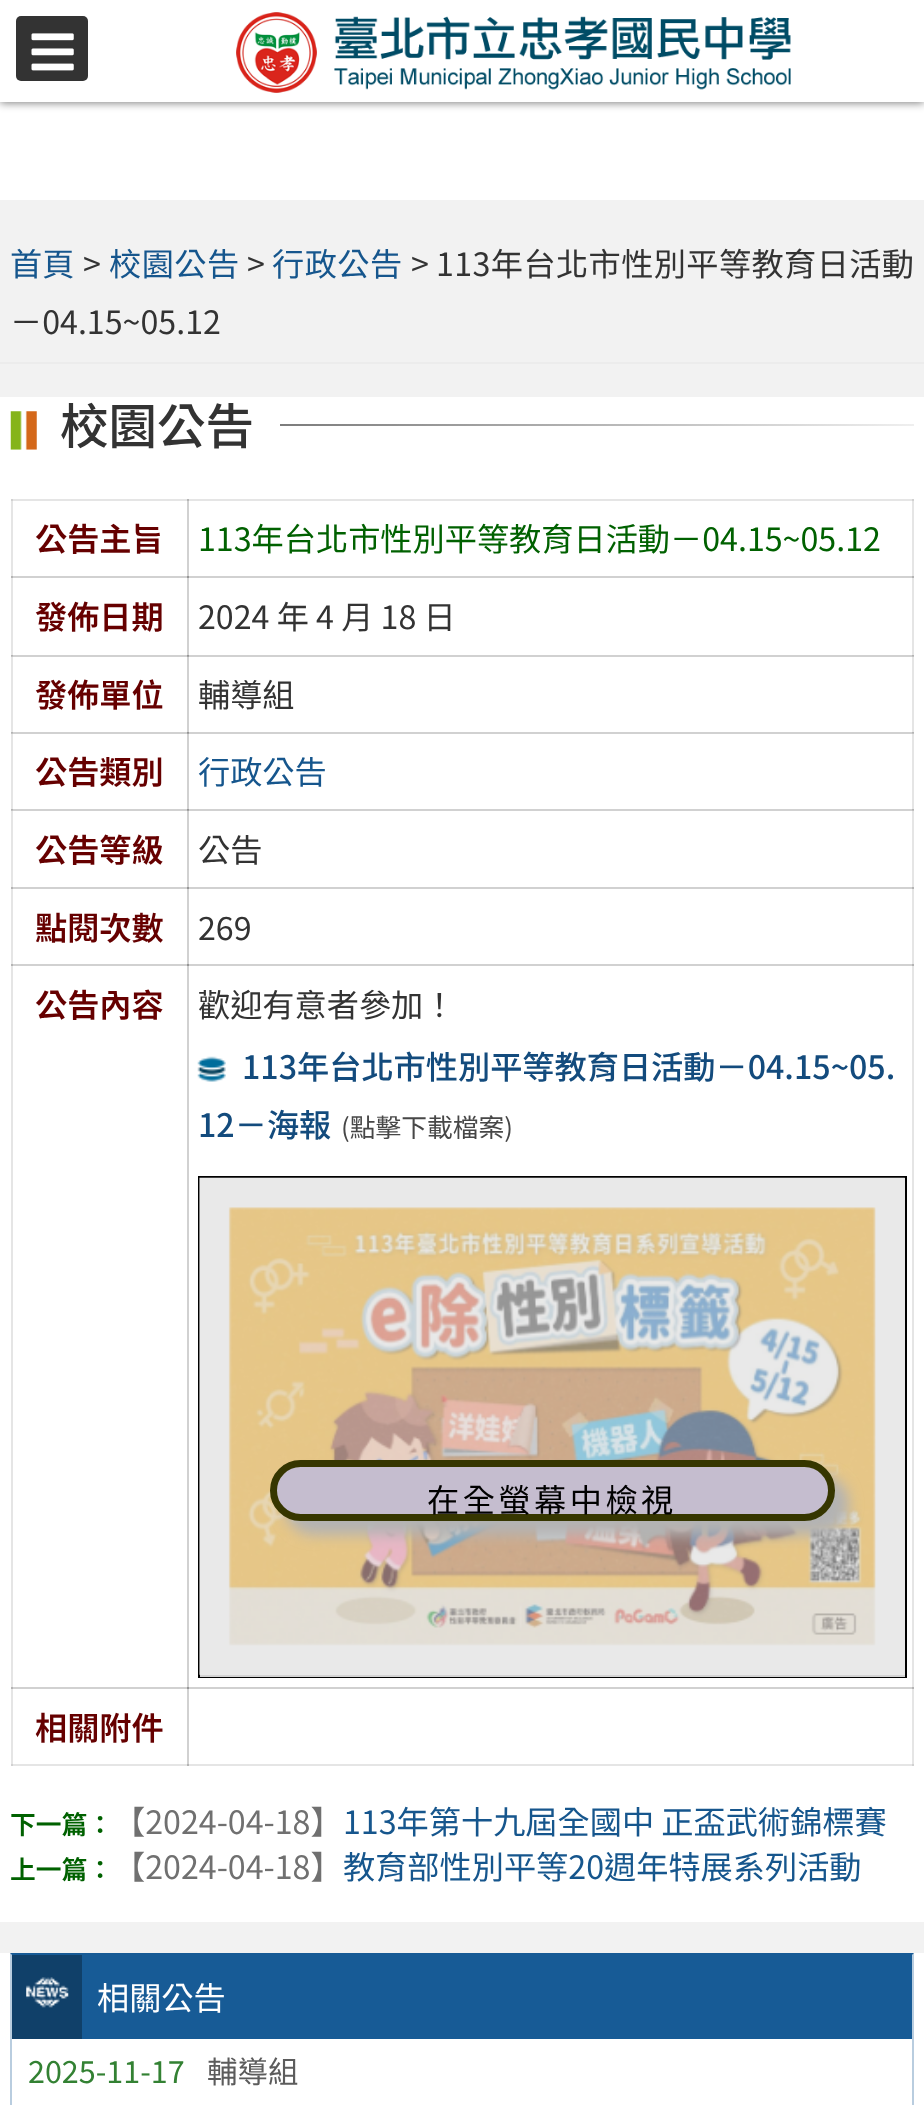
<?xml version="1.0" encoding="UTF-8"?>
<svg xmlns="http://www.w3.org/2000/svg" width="924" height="2105">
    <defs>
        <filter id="blur1" x="-50%" y="-200%" width="200%" height="500%"><feGaussianBlur stdDeviation="4.5"/></filter>
        <linearGradient id="g1" gradientUnits="userSpaceOnUse" x1="280" y1="424" x2="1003" y2="424"><stop offset="0" stop-color="#7C7C7C"/><stop offset="1" stop-color="#FFFFFF"/></linearGradient>
        <filter id="blur2" x="-50%" y="-200%" width="200%" height="500%"><feGaussianBlur stdDeviation="7"/></filter>
    </defs>
    <rect width="100%" height="100%" fill="#F2F2F2"/>
    <rect x="0" y="102" width="924" height="98" fill="#FFFFFF"/>
    <rect x="0" y="2" width="924" height="101" fill="#000000" fill-opacity="0.5" filter="url(#blur1)"/>
    <rect x="0" y="0" width="924" height="102" fill="#FFFFFF"/>
    <rect x="16" y="16" width="72" height="65" rx="5" fill="#333333"/>
    <image x="31" y="33" width="43" height="38" href="img_01.png"/>
    <image x="236" y="12" width="555" height="81" href="img_02.png"/>
    <rect x="0" y="362" width="924" height="2" fill="#ECECEC"/>
    <text x="10" y="276" font-family="Noto Sans TC" font-size="32.2" fill="#16568D">首頁</text>
    <text x="83" y="276" font-family="Noto Sans TC" font-size="32.2" fill="#333333">&gt;</text>
    <text x="109" y="276" font-family="Noto Sans TC" font-size="32.2" letter-spacing="0.5" fill="#16568D">校園公告</text>
    <text x="247" y="276" font-family="Noto Sans TC" font-size="32.2" fill="#333333">&gt;</text>
    <text x="272" y="276" font-family="Noto Sans TC" font-size="32.2" letter-spacing="0.5" fill="#16568D">行政公告</text>
    <text x="411" y="276" font-family="Noto Sans TC" font-size="32.2" fill="#333333">&gt;</text>
    <text x="436" y="276" font-family="Noto Sans TC" font-size="32.2" letter-spacing="0.4" fill="#333333">113年台北市性別平等教育日活動</text>
    <text x="10" y="334" font-family="Noto Sans TC" font-size="32.2" fill="#333333">－04.15~05.12</text>
    <rect x="0" y="397" width="924" height="1525" fill="#FFFFFF"/>
    <rect x="11" y="499" width="2" height="1267" fill="#E5E5E5"/>
    <rect x="11" y="499" width="178" height="2" fill="#E5E5E5"/>
    <rect x="11" y="499" width="2" height="2" fill="#D1D1D1"/>
    <rect x="187" y="499" width="2" height="79" fill="#D1D1D1"/>
    <rect x="912" y="499" width="2" height="1190" fill="#E5E5E5"/>
    <rect x="11" y="576" width="178" height="2" fill="#D1D1D1"/>
    <rect x="11" y="576" width="2" height="2" fill="#B4B4B4"/>
    <rect x="187" y="576" width="2" height="80" fill="#D1D1D1"/>
    <rect x="11" y="655" width="178" height="2" fill="#D1D1D1"/>
    <rect x="11" y="656" width="2" height="1" fill="#C1C1C1"/>
    <rect x="11" y="655" width="2" height="1" fill="#B4B4B4"/>
    <rect x="187" y="655" width="2" height="78" fill="#D1D1D1"/>
    <rect x="11" y="732" width="178" height="2" fill="#D1D1D1"/>
    <rect x="11" y="733" width="2" height="1" fill="#C1C1C1"/>
    <rect x="11" y="732" width="2" height="1" fill="#B4B4B4"/>
    <rect x="187" y="732" width="2" height="78" fill="#D1D1D1"/>
    <rect x="11" y="809" width="178" height="2" fill="#D1D1D1"/>
    <rect x="11" y="810" width="2" height="1" fill="#C1C1C1"/>
    <rect x="11" y="809" width="2" height="1" fill="#B4B4B4"/>
    <rect x="187" y="809" width="2" height="80" fill="#D1D1D1"/>
    <rect x="11" y="887" width="178" height="2" fill="#D1D1D1"/>
    <rect x="11" y="887" width="2" height="2" fill="#B4B4B4"/>
    <rect x="187" y="887" width="2" height="79" fill="#D1D1D1"/>
    <rect x="11" y="964" width="178" height="2" fill="#D1D1D1"/>
    <rect x="11" y="964" width="2" height="2" fill="#B4B4B4"/>
    <rect x="187" y="964" width="2" height="725" fill="#D1D1D1"/>
    <rect x="11" y="1764" width="178" height="2" fill="#E5E5E5"/>
    <rect x="11" y="1764" width="2" height="2" fill="#D1D1D1"/>
    <rect x="11" y="1687" width="178" height="2" fill="#D1D1D1"/>
    <rect x="11" y="1687" width="2" height="2" fill="#B4B4B4"/>
    <rect x="187" y="1687" width="2" height="79" fill="#D1D1D1"/>
    <rect x="187" y="1764" width="727" height="2" fill="#E5E5E5"/>
    <rect x="187" y="1764" width="2" height="2" fill="#B4B4B4"/>
    <rect x="912" y="1687" width="2" height="79" fill="#E5E5E5"/>
    <rect x="912" y="1764" width="2" height="2" fill="#D1D1D1"/>
    <image x="10" y="411" width="27" height="39" href="img_03.png"/>
    <text x="60" y="444" font-family="Noto Sans TC" font-size="48.5" font-weight="500" fill="#333333">校園公告</text>
    <rect x="280" y="424" width="634" height="2" fill="url(#g1)"/>
    <text x="35" y="551" font-family="Noto Sans TC" font-size="32.2" font-weight="600" fill="#660000">公告主旨</text>
    <rect x="187" y="499" width="727" height="2" fill="#E5E5E5"/>
    <rect x="187" y="499" width="2" height="2" fill="#B4B4B4"/>
    <rect x="912" y="499" width="2" height="2" fill="#D1D1D1"/>
    <text x="198" y="551" font-family="Noto Sans TC" font-size="32.2" fill="#006100">113年台北市性別平等教育日活動－04.15~05.12</text>
    <text x="35" y="629" font-family="Noto Sans TC" font-size="32.2" font-weight="600" fill="#660000">發佈日期</text>
    <rect x="187" y="576" width="727" height="2" fill="#D1D1D1"/>
    <rect x="187" y="576" width="2" height="2" fill="#959595"/>
    <rect x="912" y="576" width="2" height="2" fill="#B4B4B4"/>
    <text x="198" y="629" font-family="Noto Sans TC" font-size="32.2" fill="#333333">2024 年 4 月 18 日</text>
    <text x="35" y="707" font-family="Noto Sans TC" font-size="32.2" font-weight="600" fill="#660000">發佈單位</text>
    <rect x="187" y="655" width="727" height="2" fill="#D1D1D1"/>
    <rect x="187" y="656" width="2" height="1" fill="#A1A1A1"/>
    <rect x="187" y="655" width="2" height="1" fill="#959595"/>
    <rect x="912" y="656" width="2" height="1" fill="#C1C1C1"/>
    <rect x="912" y="655" width="2" height="1" fill="#B4B4B4"/>
    <text x="198" y="707" font-family="Noto Sans TC" font-size="32.2" fill="#333333">輔導組</text>
    <text x="35" y="784" font-family="Noto Sans TC" font-size="32.2" font-weight="600" fill="#660000">公告類別</text>
    <rect x="187" y="732" width="727" height="2" fill="#D1D1D1"/>
    <rect x="187" y="733" width="2" height="1" fill="#A1A1A1"/>
    <rect x="187" y="732" width="2" height="1" fill="#959595"/>
    <rect x="912" y="733" width="2" height="1" fill="#C1C1C1"/>
    <rect x="912" y="732" width="2" height="1" fill="#B4B4B4"/>
    <text x="198" y="784" font-family="Noto Sans TC" font-size="32.2" fill="#16568D">行政公告</text>
    <text x="35" y="862" font-family="Noto Sans TC" font-size="32.2" font-weight="600" fill="#660000">公告等級</text>
    <rect x="187" y="809" width="727" height="2" fill="#D1D1D1"/>
    <rect x="187" y="810" width="2" height="1" fill="#A1A1A1"/>
    <rect x="187" y="809" width="2" height="1" fill="#959595"/>
    <rect x="912" y="810" width="2" height="1" fill="#C1C1C1"/>
    <rect x="912" y="809" width="2" height="1" fill="#B4B4B4"/>
    <text x="198" y="862" font-family="Noto Sans TC" font-size="32.2" fill="#333333">公告</text>
    <text x="35" y="940" font-family="Noto Sans TC" font-size="32.2" font-weight="600" fill="#660000">點閱次數</text>
    <rect x="187" y="887" width="727" height="2" fill="#D1D1D1"/>
    <rect x="187" y="887" width="2" height="2" fill="#959595"/>
    <rect x="912" y="887" width="2" height="2" fill="#B4B4B4"/>
    <text x="198" y="940" font-family="Noto Sans TC" font-size="32.2" fill="#333333">269</text>
    <text x="35" y="1017" font-family="Noto Sans TC" font-size="32.2" font-weight="600" fill="#660000">公告內容</text>
    <rect x="187" y="964" width="727" height="2" fill="#D1D1D1"/>
    <rect x="187" y="964" width="2" height="2" fill="#959595"/>
    <rect x="912" y="964" width="2" height="2" fill="#B4B4B4"/>
    <text x="198" y="1017" font-family="Noto Sans TC" font-size="32.2" fill="#333333">歡迎有意者參加！</text>
    <image x="197" y="1056" width="29" height="26" href="img_04.png"/>
    <text x="242" y="1079" font-family="Noto Sans TC" font-size="32.2" font-weight="500" fill="#134B7D">113年台北市性別平等教育日活動－04.15~05.</text>
    <text x="198" y="1137" font-family="Noto Sans TC" font-size="32.2" font-weight="500" fill="#134B7D">12－海報</text>
    <text x="341" y="1137" font-family="Noto Sans TC" font-size="25.75" fill="#474747">(點擊下載檔案)</text>
    <rect x="199" y="1177" width="707" height="500" fill="none" stroke="#000000" stroke-width="2"/>
    <rect x="200" y="1675" width="705" height="2" fill="#D3D3D3"/>
    <image x="199" y="1177" width="706" height="498" href="img_05.png"/>
    <rect x="200" y="1178" width="705" height="497" fill="#D3D3D3" fill-opacity="0.5"/>
    <rect x="284" y="1474" width="565" height="61" rx="30.5" fill="#B3B3B3" filter="url(#blur2)"/>
    <rect x="273.5" y="1463.5" width="558" height="54" rx="27" fill="#C5BDCF" stroke="#363600" stroke-width="7"/>
    <text x="427" y="1512" font-family="Noto Sans CJK TC" font-size="32.2" letter-spacing="3.5" fill="#000000">在全螢幕中檢視</text>
    <rect x="187" y="1687" width="727" height="2" fill="#D1D1D1"/>
    <rect x="187" y="1687" width="2" height="2" fill="#959595"/>
    <rect x="912" y="1687" width="2" height="2" fill="#B4B4B4"/>
    <text x="35" y="1740" font-family="Noto Sans TC" font-size="32.2" font-weight="600" fill="#660000">相關附件</text>
    <text x="10" y="1834" font-family="Noto Sans TC" font-size="25.75" font-weight="600" fill="#006100">下一篇：</text>
    <text x="113" y="1834" font-family="Noto Sans TC" font-size="32.2" fill="#707070">【2024-04-18】</text>
    <text x="343" y="1834" font-family="Noto Sans TC" font-size="32.2" fill="#16568D">113年第十九屆全國中 正盃武術錦標賽</text>
    <text x="10" y="1879" font-family="Noto Sans TC" font-size="25.75" font-weight="600" fill="#006100">上一篇：</text>
    <text x="113" y="1879" font-family="Noto Sans TC" font-size="32.2" fill="#707070">【2024-04-18】</text>
    <text x="343" y="1879" font-family="Noto Sans TC" font-size="32.2" fill="#16568D">教育部性別平等20週年特展系列活動</text>
    <rect x="0" y="1953" width="924" height="152" fill="#FFFFFF"/>
    <path d="M 10 1953 H 914 L 912 1955 H 12 Z" fill="#175B96"/>
    <path d="M 914 1953 V 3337 L 912 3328 V 1955 Z" fill="#175B96" fill-opacity="0.3"/>
    <path d="M 10 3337 V 1953 L 12 1955 V 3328 Z" fill="#175B96" fill-opacity="0.3"/>
    <rect x="82" y="1955" width="830" height="84" fill="#175B96"/>
    <rect x="12" y="1955" width="70" height="84" fill="#104069"/>
    <image x="26" y="1977" width="43" height="31" href="img_06.png"/>
    <text x="97" y="2010" font-family="Noto Sans TC" font-size="32.2" fill="#FFFFFF">相關公告</text>
    <text x="28" y="2083" font-family="Noto Sans TC" font-size="30.5" fill="#338133">2025-11-17</text>
    <text x="207" y="2083" font-family="Noto Sans TC" font-size="30.5" fill="#5C5C5C">輔導組</text>
</svg>
